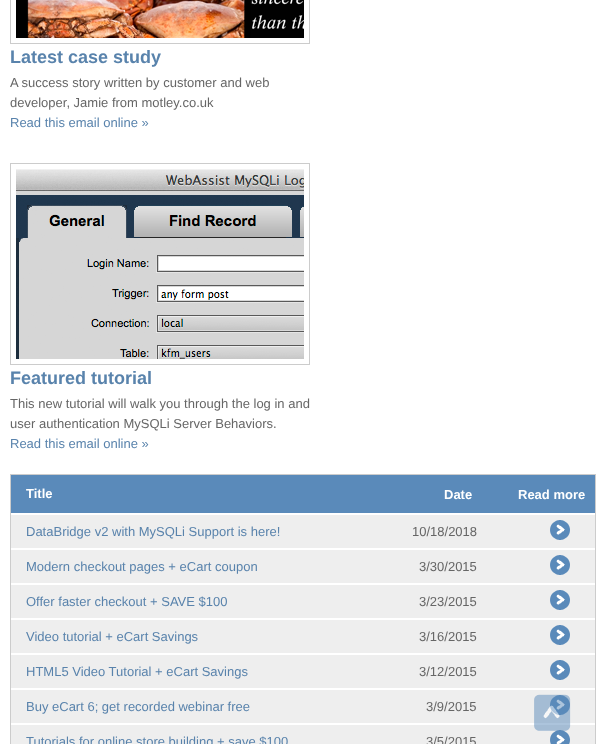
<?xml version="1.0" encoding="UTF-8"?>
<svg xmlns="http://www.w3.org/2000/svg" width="606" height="744">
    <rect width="100%" height="100%" fill="#FFFFFF"/>
    <rect x="10.5" y="-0.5" width="299" height="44" fill="none" stroke="#CCCCCC"/>
    <image x="16" y="0" width="288" height="38" href="img_01.png"/>
    <text x="10" y="63" font-family="Liberation Sans" font-size="18" font-weight="700" fill="#5983AC">Latest case study</text>
    <text font-family="Liberation Sans" font-size="13" fill="#666666">
        <tspan x="10" y="87">A success story written by customer and web</tspan>
        <tspan x="10" y="107">developer, Jamie from motley.co.uk</tspan>
    </text>
    <text x="10" y="127" font-family="Liberation Sans" font-size="13" fill="#5983AC">Read this email online »</text>
    <rect x="10.5" y="163.5" width="299" height="201" fill="none" stroke="#CCCCCC"/>
    <image x="16" y="169" width="288" height="190" href="img_02.png"/>
    <text x="10" y="384" font-family="Liberation Sans" font-size="18" font-weight="700" fill="#5983AC">Featured tutorial</text>
    <text font-family="Liberation Sans" font-size="13" fill="#666666">
        <tspan x="10" y="408">This new tutorial will walk you through the log in and</tspan>
        <tspan x="10" y="428">user authentication MySQLi Server Behaviors.</tspan>
    </text>
    <text x="10" y="448" font-family="Liberation Sans" font-size="13" fill="#5983AC">Read this email online »</text>
    <rect x="11" y="515" width="584" height="229" fill="#EEEEEE"/>
    <rect x="10.5" y="474.5" width="585" height="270" fill="none" stroke="#CCCCCC"/>
    <rect x="11" y="475" width="584" height="38" fill="#5A8ABA"/>
    <text x="26" y="498" font-family="Liberation Sans" font-size="13" font-weight="700" fill="#FFFFFF">Title</text>
    <text x="444" y="499" font-family="Liberation Sans" font-size="13" font-weight="700" fill="#FFFFFF">Date</text>
    <text x="518" y="499" font-family="Liberation Sans" font-size="13" font-weight="700" fill="#FFFFFF">Read more</text>
    <text x="26" y="536" font-family="Liberation Sans" font-size="13" fill="#5983AC">DataBridge v2 with MySQLi Support is here!</text>
    <text x="412" y="536" font-family="Liberation Sans" font-size="13" fill="#666666">10/18/2018</text>
    <image x="550" y="520" width="20" height="20" href="img_03.png"/>
    <rect x="11" y="548" width="584" height="2" fill="#FFFFFF"/>
    <text x="26" y="571" font-family="Liberation Sans" font-size="13" fill="#5983AC">Modern checkout pages + eCart coupon</text>
    <text x="419" y="571" font-family="Liberation Sans" font-size="13" fill="#666666">3/30/2015</text>
    <image x="550" y="555" width="20" height="20" href="img_03.png"/>
    <rect x="11" y="583" width="584" height="2" fill="#FFFFFF"/>
    <text x="26" y="606" font-family="Liberation Sans" font-size="13" fill="#5983AC">Offer faster checkout + SAVE $100</text>
    <text x="419" y="606" font-family="Liberation Sans" font-size="13" fill="#666666">3/23/2015</text>
    <image x="550" y="590" width="20" height="20" href="img_03.png"/>
    <rect x="11" y="618" width="584" height="2" fill="#FFFFFF"/>
    <text x="26" y="641" font-family="Liberation Sans" font-size="13" fill="#5983AC">Video tutorial + eCart Savings</text>
    <text x="419" y="641" font-family="Liberation Sans" font-size="13" fill="#666666">3/16/2015</text>
    <image x="550" y="625" width="20" height="20" href="img_03.png"/>
    <rect x="11" y="653" width="584" height="2" fill="#FFFFFF"/>
    <text x="26" y="676" font-family="Liberation Sans" font-size="13" fill="#5983AC">HTML5 Video Tutorial + eCart Savings</text>
    <text x="419" y="676" font-family="Liberation Sans" font-size="13" fill="#666666">3/12/2015</text>
    <image x="550" y="660" width="20" height="20" href="img_03.png"/>
    <rect x="11" y="688" width="584" height="2" fill="#FFFFFF"/>
    <text x="26" y="711" font-family="Liberation Sans" font-size="13" fill="#5983AC">Buy eCart 6; get recorded webinar free</text>
    <text x="426" y="711" font-family="Liberation Sans" font-size="13" fill="#666666">3/9/2015</text>
    <image x="550" y="695" width="20" height="20" href="img_03.png"/>
    <rect x="11" y="723" width="584" height="2" fill="#FFFFFF"/>
    <text x="26" y="746" font-family="Liberation Sans" font-size="13" fill="#5983AC">Tutorials for online store building + save $100</text>
    <text x="426" y="746" font-family="Liberation Sans" font-size="13" fill="#666666">3/5/2015</text>
    <image x="550" y="730" width="20" height="14" href="img_04.png"/>
    <image x="534" y="694" width="37" height="37" href="img_05.png"/>
</svg>
